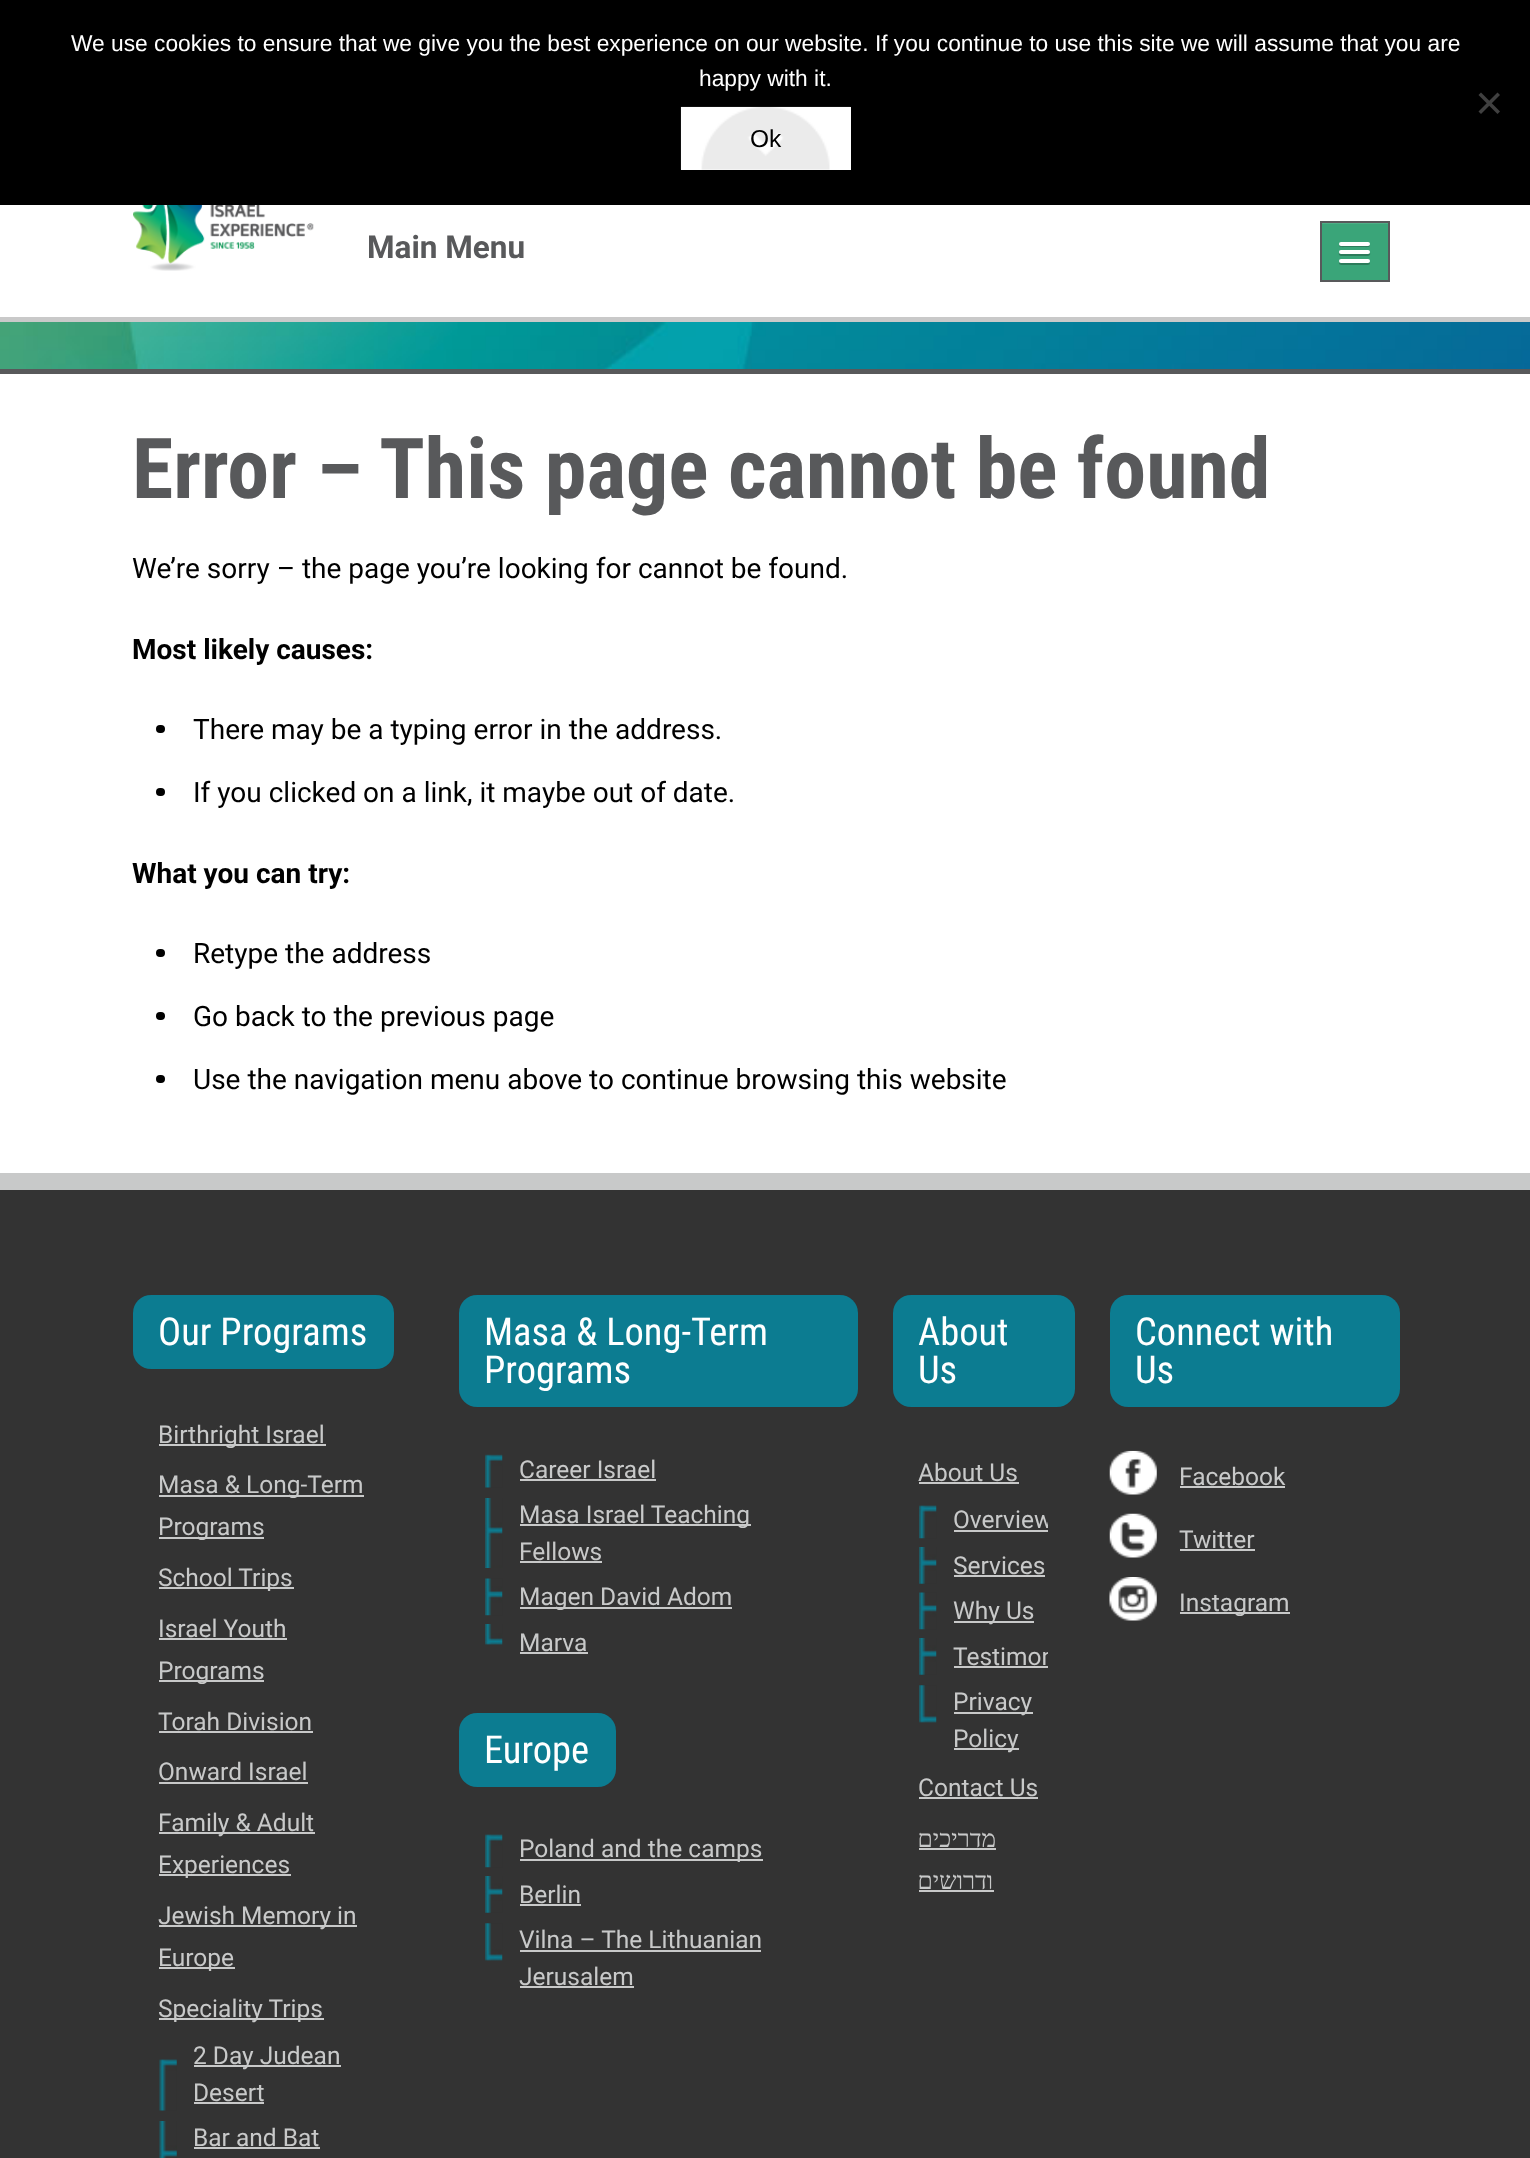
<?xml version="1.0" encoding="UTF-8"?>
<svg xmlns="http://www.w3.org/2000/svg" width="1530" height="2158">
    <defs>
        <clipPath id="clip1"><rect x="919" y="1442" width="129" height="459"/></clipPath>
    </defs>
    <rect width="100%" height="100%" fill="#FFFFFF"/>
    <rect x="0" y="0" width="1530" height="205" fill="#000000"/>
    <text x="71" y="51" font-family="Liberation Sans" font-size="22.75" fill="#FFFFFF">We use cookies to ensure that we give you the best experience on our website. If you continue to use this site we will assume that you are</text>
    <text x="699" y="86" font-family="Liberation Sans" font-size="22.75" fill="#FFFFFF">happy with it.</text>
    <path d="M 1497.5 92.5 L 1500 95 L 1481 114 L 1478.5 111.5 Z" fill="#404040"/>
    <path d="M 1478.5 95 L 1481 92.5 L 1500 111.5 L 1497.5 114 Z" fill="#404040"/>
    <rect x="681" y="107" width="170" height="63" fill="#FFFFFF"/>
    <image x="680" y="106" width="171" height="64" href="img_01.png"/>
    <text x="750" y="147" font-family="Liberation Sans" font-size="24.5" fill="#000000">Ok</text>
    <rect x="0" y="317" width="1530" height="5" fill="#C9C9C9"/>
    <image x="133" y="205" width="181" height="66" href="img_02.png"/>
    <text x="367" y="258" font-family="Roboto" font-size="31.5" font-weight="700" fill="#58595B">Main Menu</text>
    <rect x="1322" y="224" width="66" height="56" fill="#3AA579"/>
    <rect x="1321" y="223" width="67" height="1" fill="#4EAE86"/>
    <rect x="1321" y="222" width="68" height="59" fill="none" stroke="#58595B" stroke-width="2"/>
    <path d="M 1339 244.5 C 1338 248 1344.5 247 1345.5 247 H 1363.5 C 1364.5 247 1371 248 1370 244.5 L 1368.5 245 H 1340.5 Z" fill="#2C7C5B"/>
    <rect x="1339" y="242" width="31" height="4" rx="2" fill="#FFFFFF"/>
    <path d="M 1339 253 C 1337.5 257 1344.5 256 1345.5 256 H 1363.5 C 1364.5 256 1371.5 257 1370 253 L 1368.5 253.5 H 1340.5 Z" fill="#2C7C5B"/>
    <rect x="1339" y="250" width="31" height="4" rx="2" fill="#FFFFFF"/>
    <path d="M 1339.5 262 C 1337 266 1345 265 1345.5 265 H 1363.5 C 1364 265 1372 266 1369.5 262 L 1368.5 262.5 H 1340.5 Z" fill="#2C7C5B"/>
    <rect x="1339" y="259" width="31" height="4" rx="2" fill="#FFFFFF"/>
    <image x="0" y="322" width="1530" height="47" href="img_03.png"/>
    <rect x="0" y="369" width="1530" height="5" fill="#58595B"/>
    <text x="132" y="498" font-family="Roboto Condensed" font-size="84" font-weight="700" fill="#58595B">Error – This page cannot be found</text>
    <text x="132" y="578" font-family="Roboto" font-size="28" fill="#000000">We’re sorry – the page you’re looking for cannot be found.</text>
    <text x="132" y="659" font-family="Roboto" font-size="28" font-weight="700" fill="#000000">Most likely causes:</text>
    <rect x="156" y="725" width="9" height="8" rx="4" fill="#000000"/>
    <text x="193" y="739" font-family="Roboto" font-size="28" fill="#000000">There may be a typing error in the address.</text>
    <rect x="156" y="788" width="9" height="8" rx="4" fill="#000000"/>
    <text x="193" y="802" font-family="Roboto" font-size="28" fill="#000000">If you clicked on a link, it maybe out of date.</text>
    <text x="132" y="883" font-family="Roboto" font-size="28" font-weight="700" fill="#000000">What you can try:</text>
    <rect x="156" y="949" width="9" height="8" rx="4" fill="#000000"/>
    <text x="193" y="963" font-family="Roboto" font-size="28" fill="#000000">Retype the address</text>
    <rect x="156" y="1012" width="9" height="8" rx="4" fill="#000000"/>
    <text x="193" y="1026" font-family="Roboto" font-size="28" fill="#000000">Go back to the previous page</text>
    <rect x="156" y="1075" width="9" height="8" rx="4" fill="#000000"/>
    <text x="193" y="1089" font-family="Roboto" font-size="28" fill="#000000">Use the navigation menu above to continue browsing this website</text>
    <rect x="0" y="1190" width="1530" height="968" fill="#333333"/>
    <rect x="0" y="1173" width="1530" height="17" fill="#C8C9C9"/>
    <rect x="133" y="1295" width="261" height="74" rx="18" fill="#0C7C91"/>
    <text x="158" y="1345" font-family="Roboto Condensed" font-size="38.5" fill="#FFFFFF">Our Programs</text>
    <rect x="159" y="1444" width="167" height="2" fill="#C8C9C9"/>
    <text x="158" y="1443" font-family="Roboto" font-size="24.5" fill="#C8C9C9">Birthright Israel</text>
    <rect x="159" y="1495" width="205" height="2" fill="#C8C9C9"/>
    <text x="158" y="1493" font-family="Roboto" font-size="24.5" fill="#C8C9C9">Masa &amp; Long-Term</text>
    <rect x="159" y="1537" width="105" height="2" fill="#C8C9C9"/>
    <text x="158" y="1535" font-family="Roboto" font-size="24.5" fill="#C8C9C9">Programs</text>
    <rect x="159" y="1587" width="135" height="2" fill="#C8C9C9"/>
    <text x="158" y="1586" font-family="Roboto" font-size="24.5" fill="#C8C9C9">School Trips</text>
    <text x="158" y="1637" font-family="Roboto" font-size="24.5" fill="#C8C9C9">Israel Youth</text>
    <rect x="159" y="1638" width="128" height="2" fill="#C8C9C9"/>
    <rect x="159" y="1680" width="105" height="2" fill="#C8C9C9"/>
    <text x="158" y="1679" font-family="Roboto" font-size="24.5" fill="#C8C9C9">Programs</text>
    <text x="158" y="1730" font-family="Roboto" font-size="24.5" fill="#C8C9C9">Torah Division</text>
    <rect x="159" y="1731" width="154" height="2" fill="#C8C9C9"/>
    <text x="158" y="1780" font-family="Roboto" font-size="24.5" fill="#C8C9C9">Onward Israel</text>
    <rect x="159" y="1782" width="149" height="2" fill="#C8C9C9"/>
    <rect x="159" y="1832" width="156" height="2" fill="#C8C9C9"/>
    <text x="158" y="1831" font-family="Roboto" font-size="24.5" fill="#C8C9C9">Family &amp; Adult</text>
    <rect x="159" y="1874" width="132" height="2" fill="#C8C9C9"/>
    <text x="158" y="1873" font-family="Roboto" font-size="24.5" fill="#C8C9C9">Experiences</text>
    <rect x="159" y="1925" width="198" height="2" fill="#C8C9C9"/>
    <text x="158" y="1924" font-family="Roboto" font-size="24.5" fill="#C8C9C9">Jewish Memory in</text>
    <rect x="159" y="1967" width="76" height="2" fill="#C8C9C9"/>
    <text x="158" y="1966" font-family="Roboto" font-size="24.5" fill="#C8C9C9">Europe</text>
    <rect x="159" y="2018" width="165" height="2" fill="#C8C9C9"/>
    <text x="158" y="2017" font-family="Roboto" font-size="24.5" fill="#C8C9C9">Speciality Trips</text>
    <image x="159" y="2059" width="18" height="52" href="img_04.png"/>
    <rect x="194" y="2065" width="147" height="2" fill="#C8C9C9"/>
    <text font-family="Roboto" font-size="24.5" fill="#C8C9C9">
        <tspan x="193" y="2064">2 Day Judean</tspan>
        <tspan x="193" y="2101">Desert</tspan>
    </text>
    <rect x="194" y="2102" width="70" height="2" fill="#C8C9C9"/>
    <image x="159" y="2121" width="18" height="37" href="img_05.png"/>
    <text x="193" y="2146" font-family="Roboto" font-size="24.5" fill="#C8C9C9">Bar and Bat</text>
    <rect x="194" y="2147" width="126" height="2" fill="#C8C9C9"/>
    <rect x="459" y="1295" width="399" height="112" rx="18" fill="#0C7C91"/>
    <text font-family="Roboto Condensed" font-size="38.5" fill="#FFFFFF">
        <tspan x="484" y="1345">Masa &amp; Long-Term</tspan>
        <tspan x="484" y="1383">Programs</tspan>
    </text>
    <image x="485" y="1454" width="18" height="34" href="img_06.png"/>
    <text x="519" y="1478" font-family="Roboto" font-size="24.5" fill="#C8C9C9">Career Israel</text>
    <rect x="520" y="1479" width="136" height="2" fill="#C8C9C9"/>
    <image x="485" y="1498" width="18" height="70" href="img_07.png"/>
    <rect x="520" y="1524" width="231" height="2" fill="#C8C9C9"/>
    <text font-family="Roboto" font-size="24.5" fill="#C8C9C9">
        <tspan x="519" y="1523">Masa Israel Teaching</tspan>
        <tspan x="519" y="1560">Fellows</tspan>
    </text>
    <rect x="520" y="1561" width="82" height="2" fill="#C8C9C9"/>
    <image x="485" y="1578" width="18" height="38" href="img_08.png"/>
    <rect x="520" y="1607" width="212" height="2" fill="#C8C9C9"/>
    <text x="519" y="1605" font-family="Roboto" font-size="24.5" fill="#C8C9C9">Magen David Adom</text>
    <image x="485" y="1624" width="18" height="21" href="img_09.png"/>
    <text x="519" y="1651" font-family="Roboto" font-size="24.5" fill="#C8C9C9">Marva</text>
    <rect x="520" y="1652" width="68" height="2" fill="#C8C9C9"/>
    <rect x="459" y="1713" width="157" height="74" rx="18" fill="#0C7C91"/>
    <text x="484" y="1763" font-family="Roboto Condensed" font-size="38.5" fill="#FFFFFF">Europe</text>
    <image x="485" y="1834" width="18" height="34" href="img_10.png"/>
    <rect x="520" y="1859" width="243" height="2" fill="#C8C9C9"/>
    <text x="519" y="1857" font-family="Roboto" font-size="24.5" fill="#C8C9C9">Poland and the camps</text>
    <image x="485" y="1876" width="18" height="37" href="img_11.png"/>
    <text x="519" y="1903" font-family="Roboto" font-size="24.5" fill="#C8C9C9">Berlin</text>
    <rect x="520" y="1904" width="61" height="2" fill="#C8C9C9"/>
    <image x="485" y="1923" width="18" height="38" href="img_12.png"/>
    <text x="519" y="1948" font-family="Roboto" font-size="24.5" fill="#C8C9C9">Vilna – The Lithuanian</text>
    <rect x="520" y="1950" width="241" height="2" fill="#C8C9C9"/>
    <text x="519" y="1985" font-family="Roboto" font-size="24.5" fill="#C8C9C9">Jerusalem</text>
    <rect x="520" y="1986" width="114" height="2" fill="#C8C9C9"/>
    <rect x="893" y="1295" width="182" height="112" rx="18" fill="#0C7C91"/>
    <text font-family="Roboto Condensed" font-size="38.5" fill="#FFFFFF">
        <tspan x="918" y="1345">About</tspan>
        <tspan x="918" y="1383">Us</tspan>
    </text>
    <text x="918" y="1481" font-family="Roboto" font-size="24.5" fill="#C8C9C9">About Us</text>
    <rect x="919" y="1482" width="100" height="2" fill="#C8C9C9"/>
    <image x="919" y="1505" width="18" height="34" href="img_13.png"/>
    <g clip-path="url(#clip1)">
        <text x="953" y="1528" font-family="Roboto" font-size="24.5" fill="#C8C9C9">Overview</text>
    </g>
    <rect x="954" y="1530" width="94" height="2" fill="#C8C9C9"/>
    <image x="919" y="1547" width="18" height="37" href="img_14.png"/>
    <text x="953" y="1574" font-family="Roboto" font-size="24.5" fill="#C8C9C9">Services</text>
    <rect x="954" y="1575" width="91" height="2" fill="#C8C9C9"/>
    <image x="919" y="1592" width="18" height="38" href="img_08.png"/>
    <rect x="954" y="1621" width="80" height="2" fill="#C8C9C9"/>
    <text x="953" y="1619" font-family="Roboto" font-size="24.5" fill="#C8C9C9">Why Us</text>
    <image x="919" y="1638" width="18" height="37" href="img_14.png"/>
    <g clip-path="url(#clip1)">
        <text x="953" y="1665" font-family="Roboto" font-size="24.5" fill="#C8C9C9">Testimon</text>
    </g>
    <rect x="954" y="1666" width="94" height="2" fill="#C8C9C9"/>
    <image x="919" y="1685" width="18" height="38" href="img_12.png"/>
    <rect x="954" y="1712" width="79" height="2" fill="#C8C9C9"/>
    <text x="953" y="1710" font-family="Roboto" font-size="24.5" fill="#C8C9C9">Privacy</text>
    <rect x="954" y="1748" width="65" height="2" fill="#C8C9C9"/>
    <text x="953" y="1747" font-family="Roboto" font-size="24.5" fill="#C8C9C9">Policy</text>
    <text x="918" y="1796" font-family="Roboto" font-size="24.5" fill="#C8C9C9">Contact Us</text>
    <rect x="919" y="1797" width="119" height="2" fill="#C8C9C9"/>
    <text x="996" y="1847" font-family="Liberation Serif" font-size="24.5" direction="rtl" fill="#C8C9C9">מדריכים</text>
    <rect x="919" y="1848" width="77" height="2" fill="#C8C9C9"/>
    <text x="993" y="1889" font-family="Liberation Serif" font-size="24.5" direction="rtl" fill="#C8C9C9">ודרושים</text>
    <rect x="919" y="1890" width="75" height="2" fill="#C8C9C9"/>
    <rect x="1110" y="1295" width="290" height="112" rx="18" fill="#0C7C91"/>
    <text font-family="Roboto Condensed" font-size="38.5" fill="#FFFFFF">
        <tspan x="1135" y="1345">Connect with</tspan>
        <tspan x="1135" y="1383">Us</tspan>
    </text>
    <image x="1109" y="1450" width="48" height="45" href="img_15.png"/>
    <text x="1179" y="1485" font-family="Roboto" font-size="24.5" fill="#C8C9C9">Facebook</text>
    <rect x="1180" y="1486" width="105" height="2" fill="#C8C9C9"/>
    <image x="1109" y="1513" width="48" height="45" href="img_16.png"/>
    <text x="1179" y="1548" font-family="Roboto" font-size="24.5" fill="#C8C9C9">Twitter</text>
    <rect x="1180" y="1549" width="75" height="2" fill="#C8C9C9"/>
    <image x="1109" y="1577" width="48" height="44" href="img_17.png"/>
    <rect x="1180" y="1612" width="110" height="2" fill="#C8C9C9"/>
    <text x="1179" y="1611" font-family="Roboto" font-size="24.5" fill="#C8C9C9">Instagram</text>
</svg>
